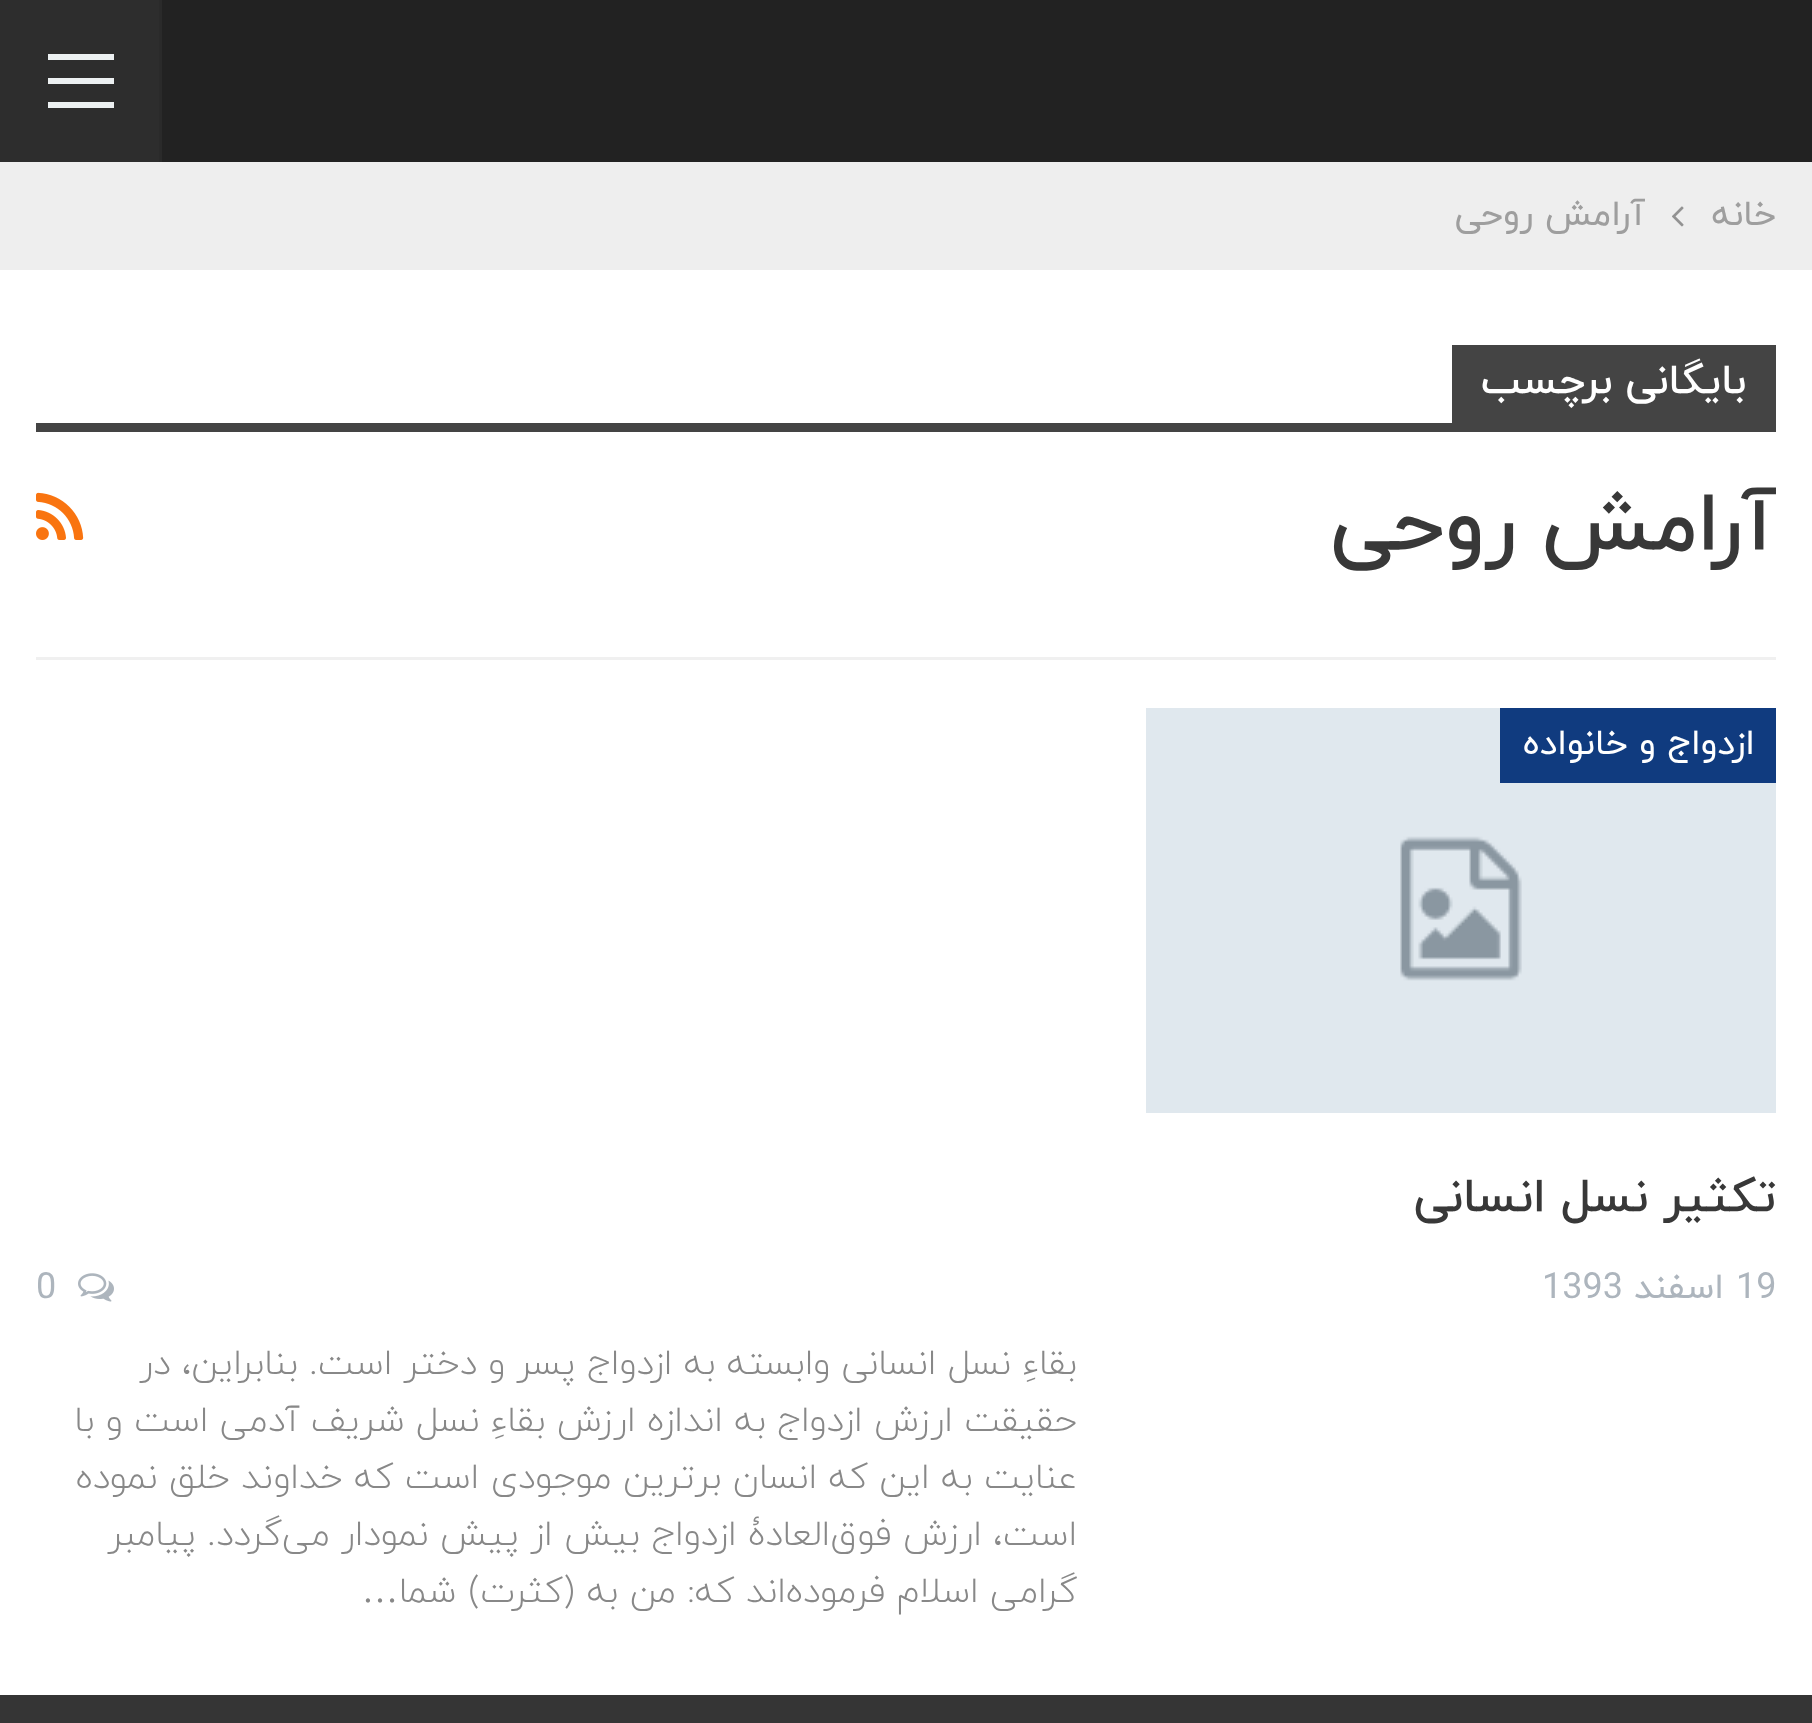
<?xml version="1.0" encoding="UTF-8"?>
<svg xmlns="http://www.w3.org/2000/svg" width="1812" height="1723">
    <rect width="100%" height="100%" fill="#FFFFFF"/>
    <rect x="162" y="0" width="1650" height="162" fill="#222222"/>
    <rect x="0" y="0" width="159" height="162" fill="#2D2D2D"/>
    <rect x="159" y="0" width="3" height="162" fill="#2A2A2A"/>
    <rect x="48" y="78" width="66" height="6" fill="#ECF0F1"/>
    <rect x="48" y="54" width="66" height="6" fill="#ECF0F1"/>
    <rect x="48" y="102" width="66" height="6" fill="#ECF0F1"/>
    <rect x="0" y="162" width="1812" height="108" fill="#EEEEEE"/>
    <text x="1776" y="225" font-family="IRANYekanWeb" font-size="36" direction="rtl" fill="#9E9E9E">خانه</text>
    <image x="1672" y="206" width="12" height="21" href="img_01.png"/>
    <text x="1645" y="225" font-family="IRANYekanWeb" font-size="36" direction="rtl" fill="#9E9E9E">آرامش روحی</text>
    <rect x="36" y="657" width="1740" height="3" fill="#F0F0F0"/>
    <rect x="1452" y="345" width="324" height="78" fill="#444444"/>
    <text x="1746" y="393" font-family="IRANYekanWeb" font-size="42" font-weight="500" direction="rtl" fill="#FFFFFF">بایگانی برچسب</text>
    <rect x="36" y="423" width="1740" height="9" fill="#444444"/>
    <text x="1776" y="549" font-family="IRANYekanWeb" font-size="84" font-weight="500" direction="rtl" fill="#383838">آرامش روحی</text>
    <image x="36" y="492" width="48" height="48" href="img_02.png"/>
    <image x="1146" y="708" width="630" height="405" href="img_03.png"/>
    <rect x="1500" y="708" width="276" height="75" fill="#103B7F"/>
    <text x="1755" y="754" font-family="IRANYekanWeb" font-size="36" direction="rtl" fill="#FFFFFF">ازدواج و خانواده</text>
    <text x="1776" y="1211" font-family="IRANYekanWeb" font-size="48" font-weight="500" direction="rtl" fill="#383838">تکثیر نسل انسانی</text>
    <text x="1736" y="1298" font-family="IRANYekanWeb" font-size="36" fill="#ADB5BD">19</text>
    <text x="1724" y="1298" font-family="IRANYekanWeb" font-size="36" direction="rtl" fill="#ADB5BD">اسفند</text>
    <text x="1542" y="1298" font-family="IRANYekanWeb" font-size="36" fill="#ADB5BD">1393</text>
    <image x="78" y="1273" width="36" height="29" href="img_04.png"/>
    <text x="36" y="1298" font-family="IRANYekanWeb" font-size="36" fill="#ADB5BD">0</text>
    <text font-family="IRANYekanWeb" font-size="36" font-weight="300" direction="rtl" fill="#888888">
        <tspan x="1077" y="1374">بقاءِ نسل انسانی وابسته به ازدواج پسر و دختر است. بنابراین، در</tspan>
        <tspan x="1077" y="1431">حقیقت ارزش ازدواج به اندازه ارزش بقاءِ نسل شریف آدمی است و با</tspan>
        <tspan x="1077" y="1488">عنایت به این که انسان برترین موجودی است که خداوند خلق نموده</tspan>
        <tspan x="1077" y="1545">است، ارزش فوق‌العادۀ ازدواج بیش از پیش نمودار می‌گردد.</tspan>
    </text>
    <text x="196" y="1545" font-family="IRANYekanWeb" font-size="36" font-weight="300" direction="rtl" fill="#888888">پیامبر</text>
    <text x="1077" y="1602" font-family="IRANYekanWeb" font-size="36" font-weight="300" direction="rtl" fill="#888888">گرامی اسلام فرموده‌اند که:</text>
    <text x="676" y="1602" font-family="IRANYekanWeb" font-size="36" font-weight="300" direction="rtl" fill="#888888">من به (کثرت) شما</text>
    <text x="398" y="1602" font-family="Liberation Serif" font-size="36" direction="rtl" fill="#888888">…</text>
    <rect x="0" y="1695" width="1812" height="28" fill="#353535"/>
</svg>
